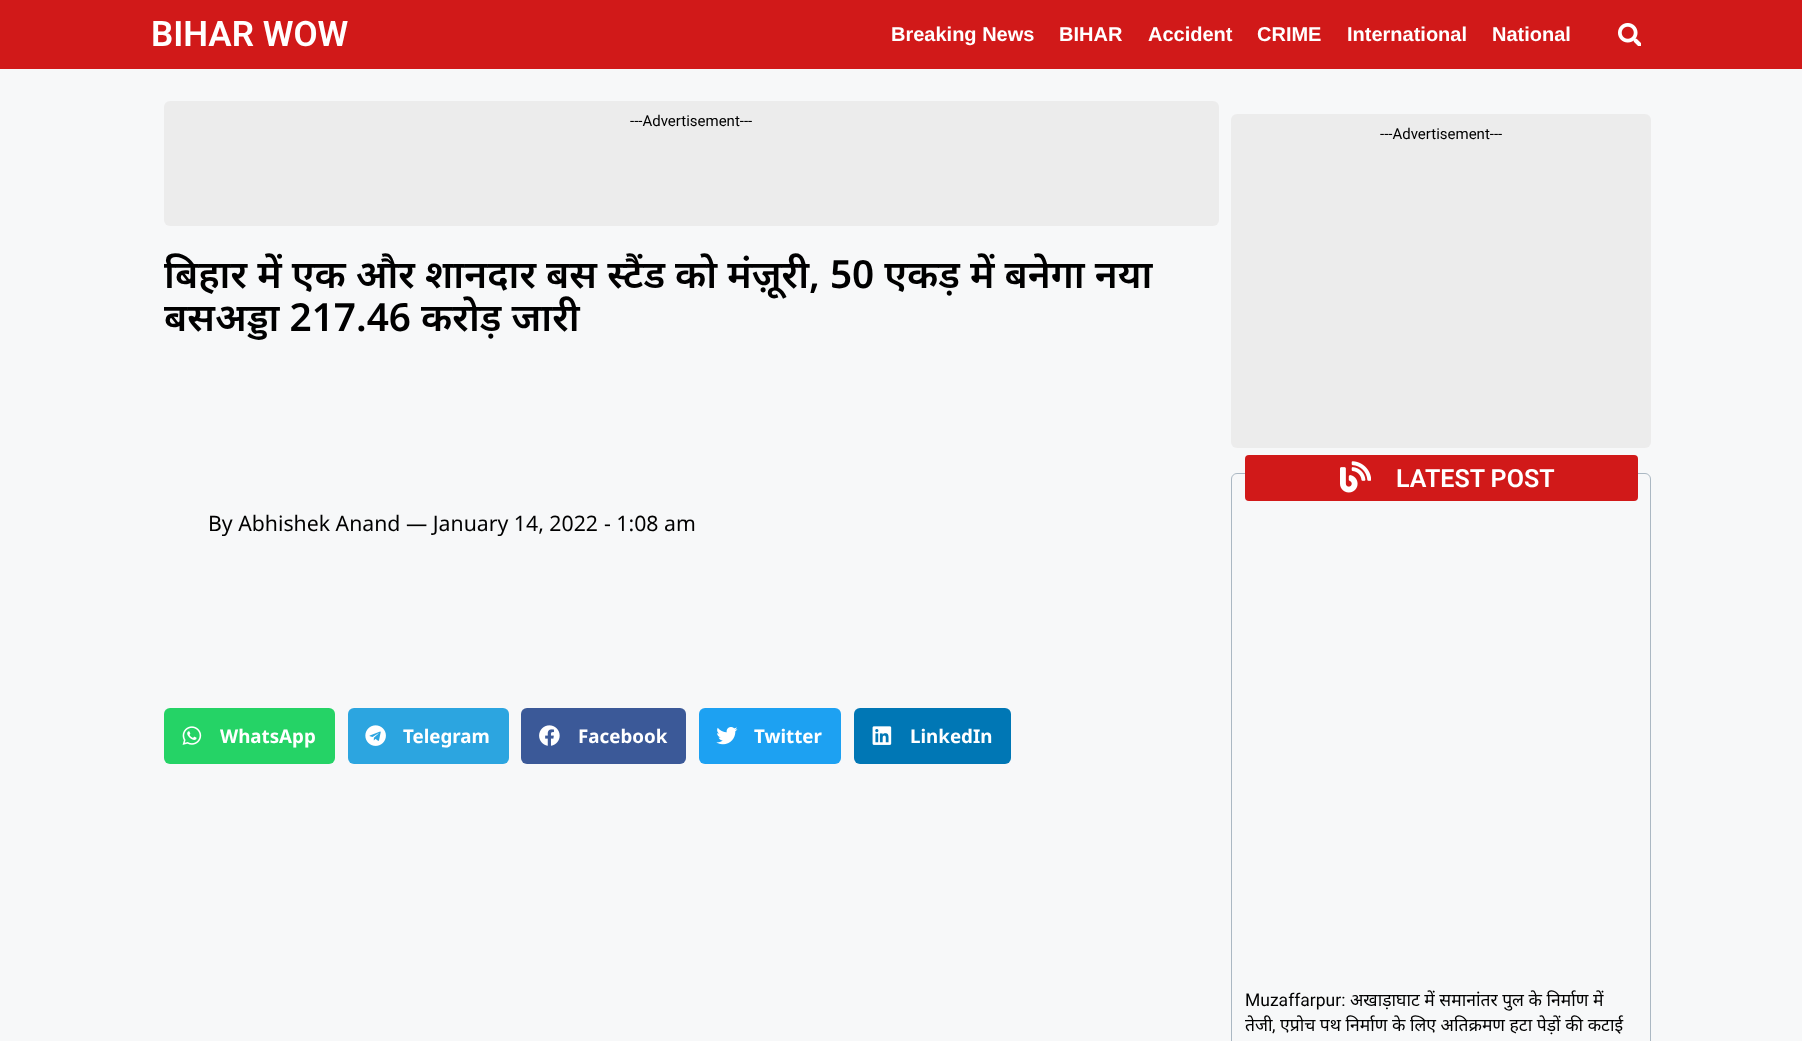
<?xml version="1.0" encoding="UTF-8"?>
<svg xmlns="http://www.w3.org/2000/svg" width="1802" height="1041">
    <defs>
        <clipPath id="clip1"><rect x="1245" y="526" width="393" height="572"/></clipPath>
    </defs>
    <rect width="100%" height="100%" fill="#F7F8F9"/>
    <rect x="0" y="0" width="1802" height="69" fill="#D11919"/>
    <text x="151" y="46" font-family="Roboto" font-size="35" font-weight="600" fill="#FFFFFF">BIHAR WOW</text>
    <text x="891" y="41" font-family="Liberation Sans" font-size="20" font-weight="700" fill="#FFFFFF">Breaking News</text>
    <text x="1059" y="41" font-family="Liberation Sans" font-size="20" font-weight="700" fill="#FFFFFF">BIHAR</text>
    <text x="1148" y="41" font-family="Liberation Sans" font-size="20" font-weight="700" fill="#FFFFFF">Accident</text>
    <text x="1257" y="41" font-family="Liberation Sans" font-size="20" font-weight="700" fill="#FFFFFF">CRIME</text>
    <text x="1347" y="41" font-family="Liberation Sans" font-size="20" font-weight="700" fill="#FFFFFF">International</text>
    <text x="1492" y="41" font-family="Liberation Sans" font-size="20" font-weight="700" fill="#FFFFFF">National</text>
    <image x="1618" y="23" width="23" height="23" href="img_01.png"/>
    <rect x="164" y="101" width="1055" height="125" rx="6" fill="#ECECEC"/>
    <text x="630" y="126" font-family="Roboto" font-size="15" fill="#000000">---Advertisement---</text>
    <text font-family="Noto Sans" font-size="38.75" font-weight="600" fill="#000000">
        <tspan x="164" y="288">बिहार में एक और शानदार बस स्टैंड को मंज़ूरी, 50 एकड़ में बनेगा नया</tspan>
        <tspan x="164" y="331">बसअड्डा 217.46 करोड़ जारी</tspan>
    </text>
    <text x="208" y="531" font-family="Noto Sans" font-size="21.25" fill="#000000">By Abhishek Anand</text>
    <text x="406" y="531" font-family="Noto Sans" font-size="21.25" fill="#000000">— January 14, 2022</text>
    <text x="604" y="531" font-family="Noto Sans" font-size="21.25" fill="#000000">- 1:08 am</text>
    <rect x="164" y="708" width="171" height="56" rx="6" fill="#25D366"/>
    <image x="182" y="726" width="20" height="19" href="img_02.png"/>
    <text x="220" y="743" font-family="Noto Sans" font-size="18.75" font-weight="700" fill="#FFFFFF">WhatsApp</text>
    <rect x="348" y="708" width="161" height="56" rx="6" fill="#2CA5E0"/>
    <image x="365" y="725" width="21" height="21" href="img_03.png"/>
    <text x="403" y="743" font-family="Noto Sans" font-size="18.75" font-weight="700" fill="#FFFFFF">Telegram</text>
    <rect x="521" y="708" width="165" height="56" rx="6" fill="#3B5998"/>
    <image x="539" y="725" width="21" height="21" href="img_04.png"/>
    <text x="578" y="743" font-family="Noto Sans" font-size="18.75" font-weight="700" fill="#FFFFFF">Facebook</text>
    <rect x="699" y="708" width="142" height="56" rx="6" fill="#1DA1F2"/>
    <image x="716" y="727" width="22" height="18" href="img_05.png"/>
    <text x="754" y="743" font-family="Noto Sans" font-size="18.75" font-weight="700" fill="#FFFFFF">Twitter</text>
    <rect x="854" y="708" width="157" height="56" rx="6" fill="#0077B5"/>
    <image x="872" y="726" width="20" height="19" href="img_06.png"/>
    <text x="910" y="743" font-family="Noto Sans" font-size="18.75" font-weight="700" fill="#FFFFFF">LinkedIn</text>
    <rect x="1231" y="114" width="420" height="334" rx="6" fill="#ECECEC"/>
    <text x="1380" y="139" font-family="Roboto" font-size="15" fill="#000000">---Advertisement---</text>
    <rect x="1231.5" y="473.5" width="419" height="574" rx="5.5" fill="none" stroke="#ABB8C3"/>
    <rect x="1245" y="455" width="393" height="46" rx="4" fill="#D11919"/>
    <image x="1340" y="461" width="31" height="32" href="img_07.png"/>
    <text x="1396" y="487" font-family="Roboto" font-size="25" font-weight="600" fill="#FFFFFF">LATEST POST</text>
    <text x="1245" y="1006" font-family="Roboto" font-size="17.5" fill="#000000">Muzaffarpur:</text>
    <text x="1350" y="1006" font-family="Noto Sans" font-size="17.5" fill="#000000">अखाड़ाघाट में समानांतर पुल के निर्माण में</text>
    <g clip-path="url(#clip1)">
        <text x="1245" y="1031" font-family="Noto Sans" font-size="17.5" fill="#000000">तेजी</text>
    </g>
    <text x="1272" y="1031" font-family="Roboto" font-size="17.5" fill="#000000">,</text>
    <text x="1280" y="1031" font-family="Noto Sans" font-size="17.5" fill="#000000">एप्रोच पथ निर्माण के लिए अतिक्रमण हटा पेड़ों की कटाई</text>
</svg>
